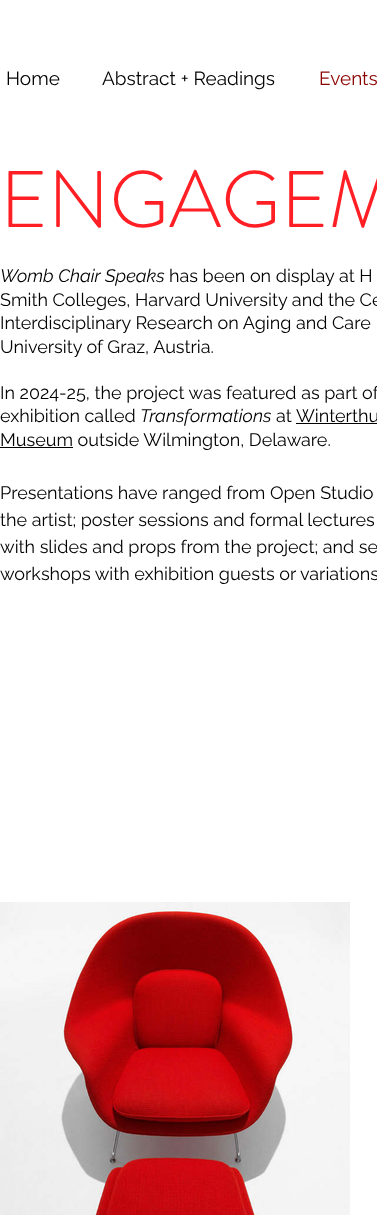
<?xml version="1.0" encoding="UTF-8"?>
<svg xmlns="http://www.w3.org/2000/svg" width="377" height="1215">
    <rect width="100%" height="100%" fill="#FFFFFF"/>
    <text x="6" y="85" font-family="Raleway" font-size="19" fill="#000000">Home</text>
    <text x="102" y="85" font-family="Raleway" font-size="19" fill="#000000">Abstract + Readings</text>
    <text x="319" y="85" font-family="Raleway" font-size="19" fill="#8B0000">Events</text>
    <text x="0" y="227" font-family="'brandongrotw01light'" font-size="80" font-weight="300" fill="#FF1F24">ENGAGEM</text>
    <text x="0" y="282" font-family="Raleway" font-size="18" font-style="italic" fill="#000000">Womb Chair Speaks</text>
    <text x="169" y="282" font-family="Raleway" font-size="18" fill="#000000">has been on display at H</text>
    <text font-family="Raleway" font-size="18" fill="#000000">
        <tspan x="0" y="306">Smith Colleges, Harvard University and the Ce</tspan>
        <tspan x="0" y="329">Interdisciplinary Research on Aging and Care</tspan>
        <tspan x="0" y="353">University of Graz, Austria.</tspan>
    </text>
    <text font-family="Raleway" font-size="18" fill="#000000">
        <tspan x="0" y="399">In 2024-25, the project was featured as part of</tspan>
        <tspan x="0" y="422">exhibition called</tspan>
    </text>
    <text x="140" y="422" font-family="Raleway" font-size="18" font-style="italic" fill="#000000">Transformations</text>
    <text x="276" y="422" font-family="Raleway" font-size="18" fill="#000000">at</text>
    <text x="296" y="422" font-family="Raleway" font-size="18" fill="#000000">Winterthu</text>
    <rect x="296" y="423" width="81" height="1" fill="#000000"/>
    <rect x="0" y="447" width="73" height="1" fill="#000000"/>
    <text x="0" y="446" font-family="Raleway" font-size="18" fill="#000000">Museum outside Wilmington, Delaware.</text>
    <text font-family="Raleway" font-size="18" fill="#000000">
        <tspan x="0" y="499">Presentations have ranged from Open Studio</tspan>
        <tspan x="0" y="526">the artist; poster sessions and formal lectures</tspan>
        <tspan x="0" y="553">with slides and props from the project; and se</tspan>
        <tspan x="0" y="580">workshops with exhibition guests or variations</tspan>
    </text>
    <image x="0" y="902" width="350" height="313" href="img_01.png"/>
</svg>
